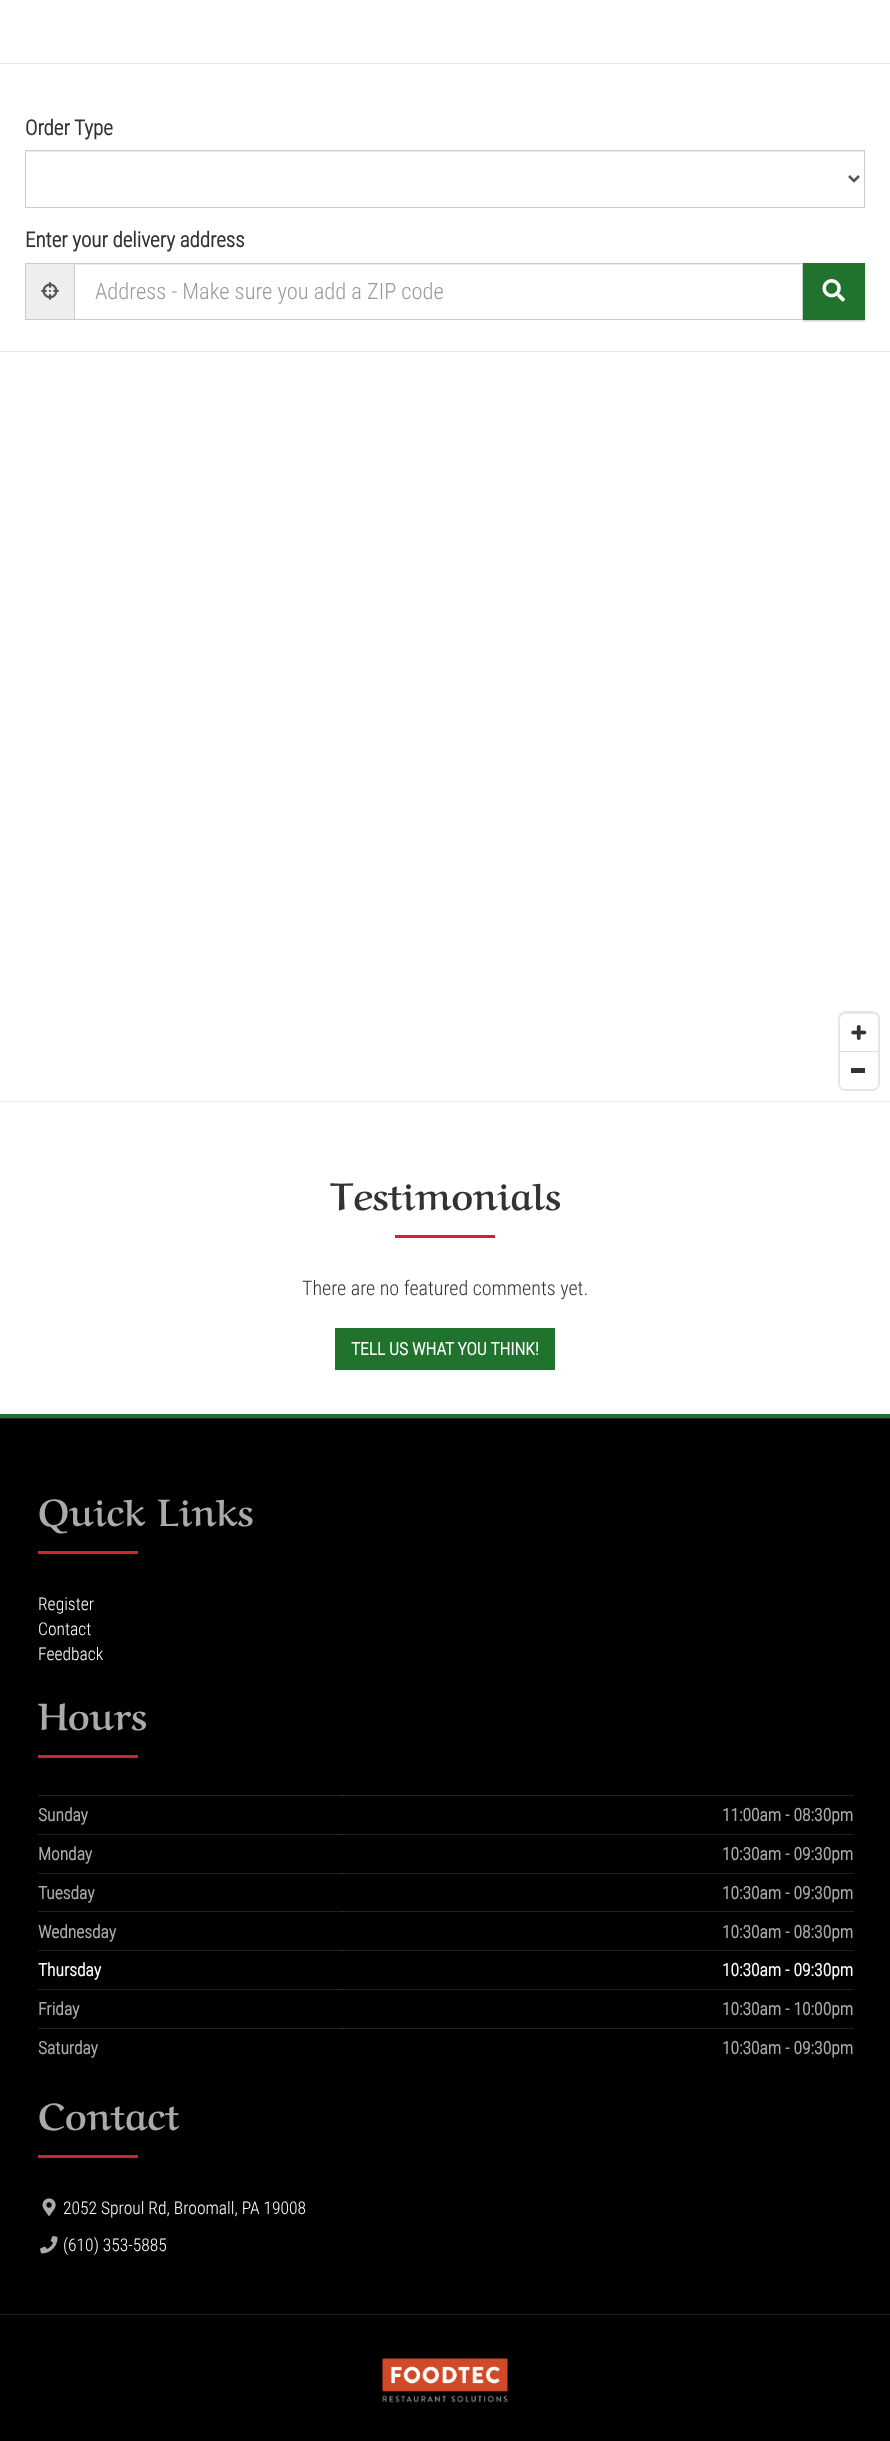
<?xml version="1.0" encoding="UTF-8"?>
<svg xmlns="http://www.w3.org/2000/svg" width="890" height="2441">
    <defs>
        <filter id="blur1" x="-50%" y="-200%" width="200%" height="500%"><feGaussianBlur stdDeviation="1"/></filter>
    </defs>
    <rect width="100%" height="100%" fill="#FFFFFF"/>
    <rect x="0" y="63" width="890" height="1" fill="#E6E6E6"/>
    <text x="25" y="135" font-family="Roboto Condensed" font-size="21" font-weight="700" fill="#333333">Order Type</text>
    <rect x="26" y="151" width="838" height="1" fill="#ECECEC"/>
    <rect x="25.5" y="150.5" width="839" height="57" fill="none" stroke="#CCCCCC"/>
    <path d="M 849 176 L 854 181 L 859 176" fill="none" stroke="#555555" stroke-width="2.5"/>
    <text x="25" y="247" font-family="Roboto Condensed" font-size="21" font-weight="700" fill="#333333">Enter your delivery address</text>
    <rect x="26" y="264" width="48" height="55" fill="#EEEEEE"/>
    <rect x="25" y="263" width="49" height="1" fill="#CCCCCC"/>
    <rect x="25" y="319" width="49" height="1" fill="#CCCCCC"/>
    <rect x="25" y="263" width="1" height="57" fill="#CCCCCC"/>
    <image x="41" y="282" width="18" height="18" href="img_01.png"/>
    <rect x="803" y="264" width="62" height="57" fill="#000000" fill-opacity="0.25" filter="url(#blur1)"/>
    <rect x="801" y="264" width="1" height="55" fill="#FFFFFF"/>
    <rect x="75" y="264" width="726" height="1" fill="#ECECEC"/>
    <rect x="74.5" y="263.5" width="728" height="56" fill="none" stroke="#CCCCCC"/>
    <text x="95" y="299" font-family="Roboto Condensed" font-size="22.5" font-weight="300" fill="#999999">Address - Make sure you add a ZIP code</text>
    <rect x="803" y="263" width="62" height="57" fill="#1F732D"/>
    <image x="822" y="279" width="23" height="23" href="img_02.png"/>
    <rect x="0" y="351" width="890" height="1" fill="#E6E6E6"/>
    <rect x="839.5" y="1012.5" width="39" height="77" rx="6.5" fill="none" stroke="#E6E6E6" stroke-width="3"/>
    <rect x="840" y="1014" width="38" height="75" rx="5" fill="#FFFFFF"/>
    <image x="851" y="1025" width="16" height="15" href="img_03.png"/>
    <rect x="851" y="1068" width="14" height="5" fill="#333333"/>
    <rect x="840" y="1051" width="38" height="1" fill="#DDDDDD"/>
    <rect x="0" y="1101" width="890" height="1" fill="#EAEAEA"/>
    <text x="330" y="1210" font-family="Aref Ruqaa" font-size="37.5" font-weight="700" fill="#333333">Testimonials</text>
    <rect x="395" y="1235" width="100" height="3" fill="#D2232A"/>
    <text x="302" y="1295" font-family="Roboto Condensed" font-size="20" font-weight="300" fill="#333333">There are no featured comments yet.</text>
    <rect x="335" y="1328" width="220" height="42" fill="#1F732D"/>
    <text x="351" y="1355" font-family="Roboto Condensed" font-size="17.5" font-weight="700" fill="#FFFFFF">TELL US WHAT YOU THINK!</text>
    <rect x="0" y="1419" width="890" height="1022" fill="#000000"/>
    <rect x="0" y="1414" width="890" height="4" fill="#1F732D"/>
    <rect x="0" y="1418" width="890" height="1" fill="#1E1E1E"/>
    <text x="38" y="1526" font-family="Aref Ruqaa" font-size="37.5" font-weight="700" fill="#AAAAAA">Quick Links</text>
    <rect x="38" y="1551" width="100" height="3" fill="#D2232A"/>
    <text font-family="Roboto Condensed" font-size="17.5" font-weight="300" fill="#FFFFFF">
        <tspan x="38" y="1610">Register</tspan>
        <tspan x="38" y="1635">Contact</tspan>
        <tspan x="38" y="1660">Feedback</tspan>
    </text>
    <text x="38" y="1730" font-family="Aref Ruqaa" font-size="37.5" font-weight="700" fill="#AAAAAA">Hours</text>
    <rect x="38" y="1755" width="100" height="3" fill="#D2232A"/>
    <rect x="341" y="1795" width="513" height="1" fill="#202020"/>
    <rect x="38" y="1795" width="305" height="1" fill="#808080" fill-opacity="0.25"/>
    <text x="38" y="1821" font-family="Roboto Condensed" font-size="17.5" font-weight="700" fill="#AAAAAA">Sunday</text>
    <text x="722" y="1821" font-family="Roboto Condensed" font-size="17.5" font-weight="700" fill="#AAAAAA">11:00am - 08:30pm</text>
    <rect x="341" y="1834" width="513" height="1" fill="#202020"/>
    <rect x="38" y="1834" width="305" height="1" fill="#808080" fill-opacity="0.25"/>
    <text x="38" y="1860" font-family="Roboto Condensed" font-size="17.5" font-weight="700" fill="#AAAAAA">Monday</text>
    <text x="722" y="1860" font-family="Roboto Condensed" font-size="17.5" font-weight="700" fill="#AAAAAA">10:30am - 09:30pm</text>
    <rect x="341" y="1873" width="513" height="1" fill="#202020"/>
    <rect x="38" y="1873" width="305" height="1" fill="#808080" fill-opacity="0.25"/>
    <text x="38" y="1899" font-family="Roboto Condensed" font-size="17.5" font-weight="700" fill="#AAAAAA">Tuesday</text>
    <text x="722" y="1899" font-family="Roboto Condensed" font-size="17.5" font-weight="700" fill="#AAAAAA">10:30am - 09:30pm</text>
    <rect x="341" y="1911" width="513" height="1" fill="#202020"/>
    <rect x="38" y="1911" width="305" height="1" fill="#808080" fill-opacity="0.25"/>
    <text x="38" y="1938" font-family="Roboto Condensed" font-size="17.5" font-weight="700" fill="#AAAAAA">Wednesday</text>
    <text x="722" y="1938" font-family="Roboto Condensed" font-size="17.5" font-weight="700" fill="#AAAAAA">10:30am - 08:30pm</text>
    <rect x="341" y="1950" width="513" height="1" fill="#202020"/>
    <rect x="38" y="1950" width="305" height="1" fill="#808080" fill-opacity="0.25"/>
    <text x="38" y="1976" font-family="Roboto Condensed" font-size="17.5" font-weight="700" fill="#FFFFFF">Thursday</text>
    <text x="722" y="1976" font-family="Roboto Condensed" font-size="17.5" font-weight="700" fill="#FFFFFF">10:30am - 09:30pm</text>
    <rect x="341" y="1989" width="513" height="1" fill="#202020"/>
    <rect x="38" y="1989" width="305" height="1" fill="#808080" fill-opacity="0.25"/>
    <text x="38" y="2015" font-family="Roboto Condensed" font-size="17.5" font-weight="700" fill="#AAAAAA">Friday</text>
    <text x="722" y="2015" font-family="Roboto Condensed" font-size="17.5" font-weight="700" fill="#AAAAAA">10:30am - 10:00pm</text>
    <rect x="341" y="2028" width="513" height="1" fill="#202020"/>
    <rect x="38" y="2028" width="305" height="1" fill="#808080" fill-opacity="0.25"/>
    <text x="38" y="2054" font-family="Roboto Condensed" font-size="17.5" font-weight="700" fill="#AAAAAA">Saturday</text>
    <text x="722" y="2054" font-family="Roboto Condensed" font-size="17.5" font-weight="700" fill="#AAAAAA">10:30am - 09:30pm</text>
    <text x="38" y="2130" font-family="Aref Ruqaa" font-size="37.5" font-weight="700" fill="#AAAAAA">Contact</text>
    <rect x="38" y="2155" width="100" height="3" fill="#D2232A"/>
    <image x="42" y="2198" width="14" height="18" href="img_04.png"/>
    <text x="63" y="2214" font-family="Roboto Condensed" font-size="17.5" font-weight="300" fill="#FFFFFF">2052 Sproul Rd, Broomall, PA 19008</text>
    <image x="40" y="2236" width="18" height="18" href="img_05.png"/>
    <text x="63" y="2251" font-family="Roboto Condensed" font-size="17.5" font-weight="300" fill="#FFFFFF">(610) 353-5885</text>
    <rect x="0" y="2314" width="890" height="1" fill="#1E1E1E"/>
    <image x="382" y="2358" width="126" height="45" href="img_06.png"/>
</svg>
